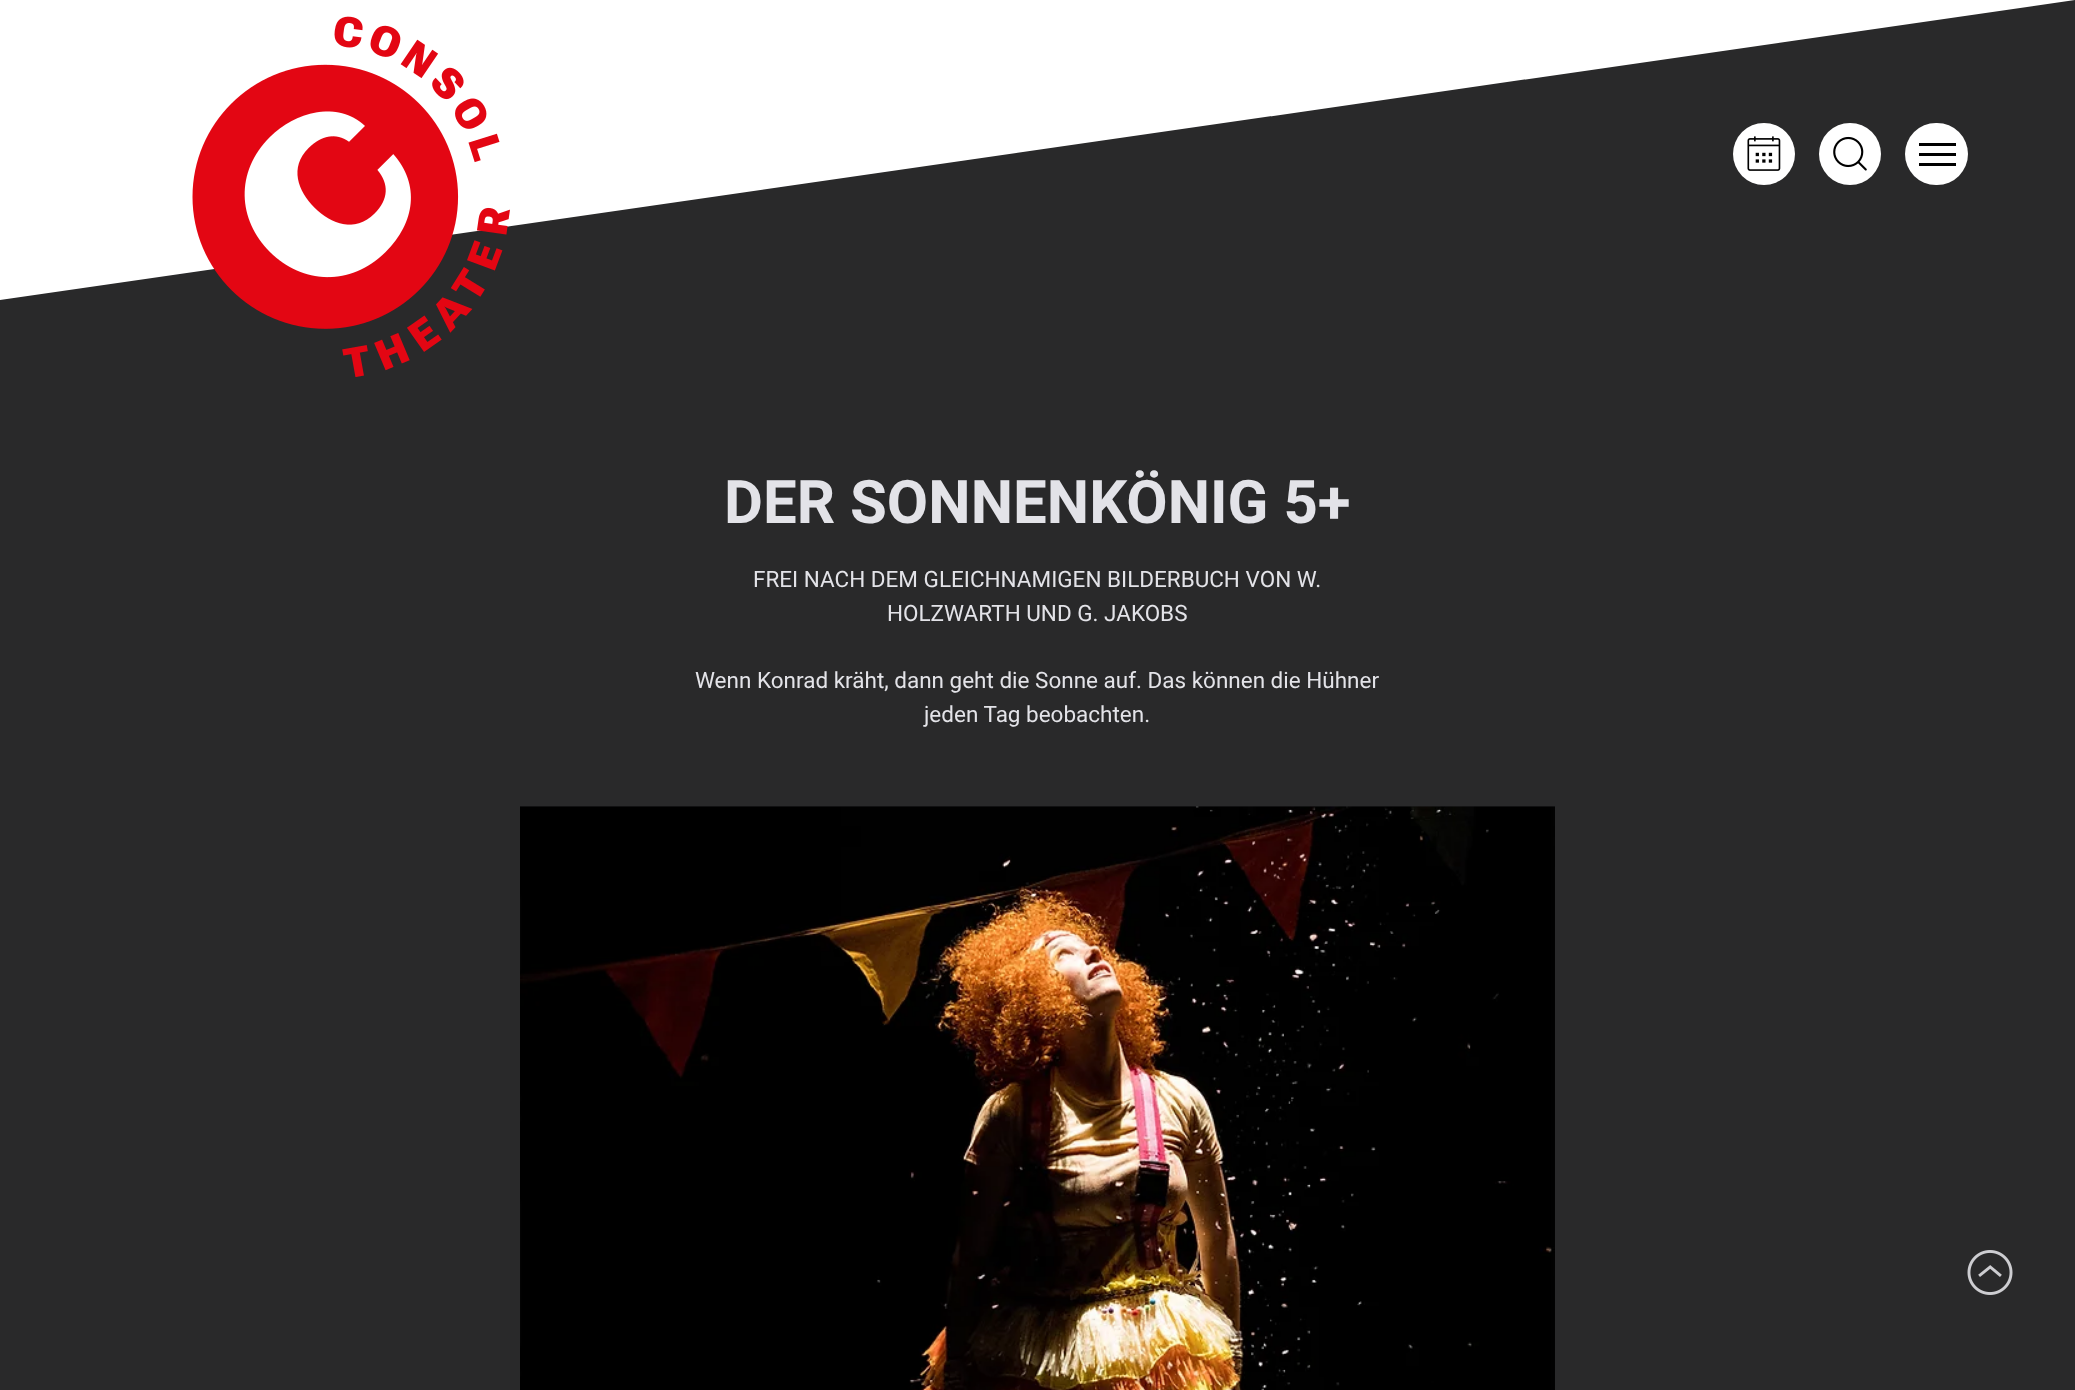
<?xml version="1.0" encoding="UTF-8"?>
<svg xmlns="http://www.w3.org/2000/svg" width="2075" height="1390">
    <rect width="100%" height="100%" fill="#29292A"/>
    <path d="M 2075 0 L 0 300 V 0 Z" fill="#FFFFFF"/>
    <image x="192" y="16" width="318" height="361" href="img_01.png"/>
    <circle cx="1764" cy="154" r="31" fill="#FFFFFF"/>
    <image x="1747" y="136" width="34" height="35" href="img_02.png"/>
    <circle cx="1850" cy="154" r="31" fill="#FFFFFF"/>
    <image x="1833" y="136" width="34" height="35" href="img_03.png"/>
    <rect x="1905" y="123" width="63" height="62" rx="31" fill="#FFFFFF"/>
    <rect x="1919" y="163" width="37" height="3" fill="#000000"/>
    <rect x="1919" y="143" width="37" height="3" fill="#000000"/>
    <rect x="1919" y="153" width="37" height="3" fill="#000000"/>
    <text x="724" y="523" font-family="Roboto" font-size="60" font-weight="700" fill="#E3E3E8">DER SONNENKÖNIG 5+</text>
    <text x="753" y="587" font-family="Roboto" font-size="22.5" fill="#E3E3E8">FREI NACH DEM GLEICHNAMIGEN BILDERBUCH VON W.</text>
    <text x="887" y="621" font-family="Roboto" font-size="22.5" fill="#E3E3E8">HOLZWARTH UND G. JAKOBS</text>
    <text x="695" y="688" font-family="Roboto" font-size="22.5" fill="#E3E3E8">Wenn Konrad kräht, dann geht die Sonne auf. Das können die Hühner</text>
    <text x="924" y="722" font-family="Roboto" font-size="22.5" fill="#E3E3E8">jeden Tag beobachten.</text>
    <image x="520" y="806" width="1035" height="584" href="img_04.png"/>
    <image x="1967" y="1250" width="46" height="45" href="img_05.png"/>
</svg>
